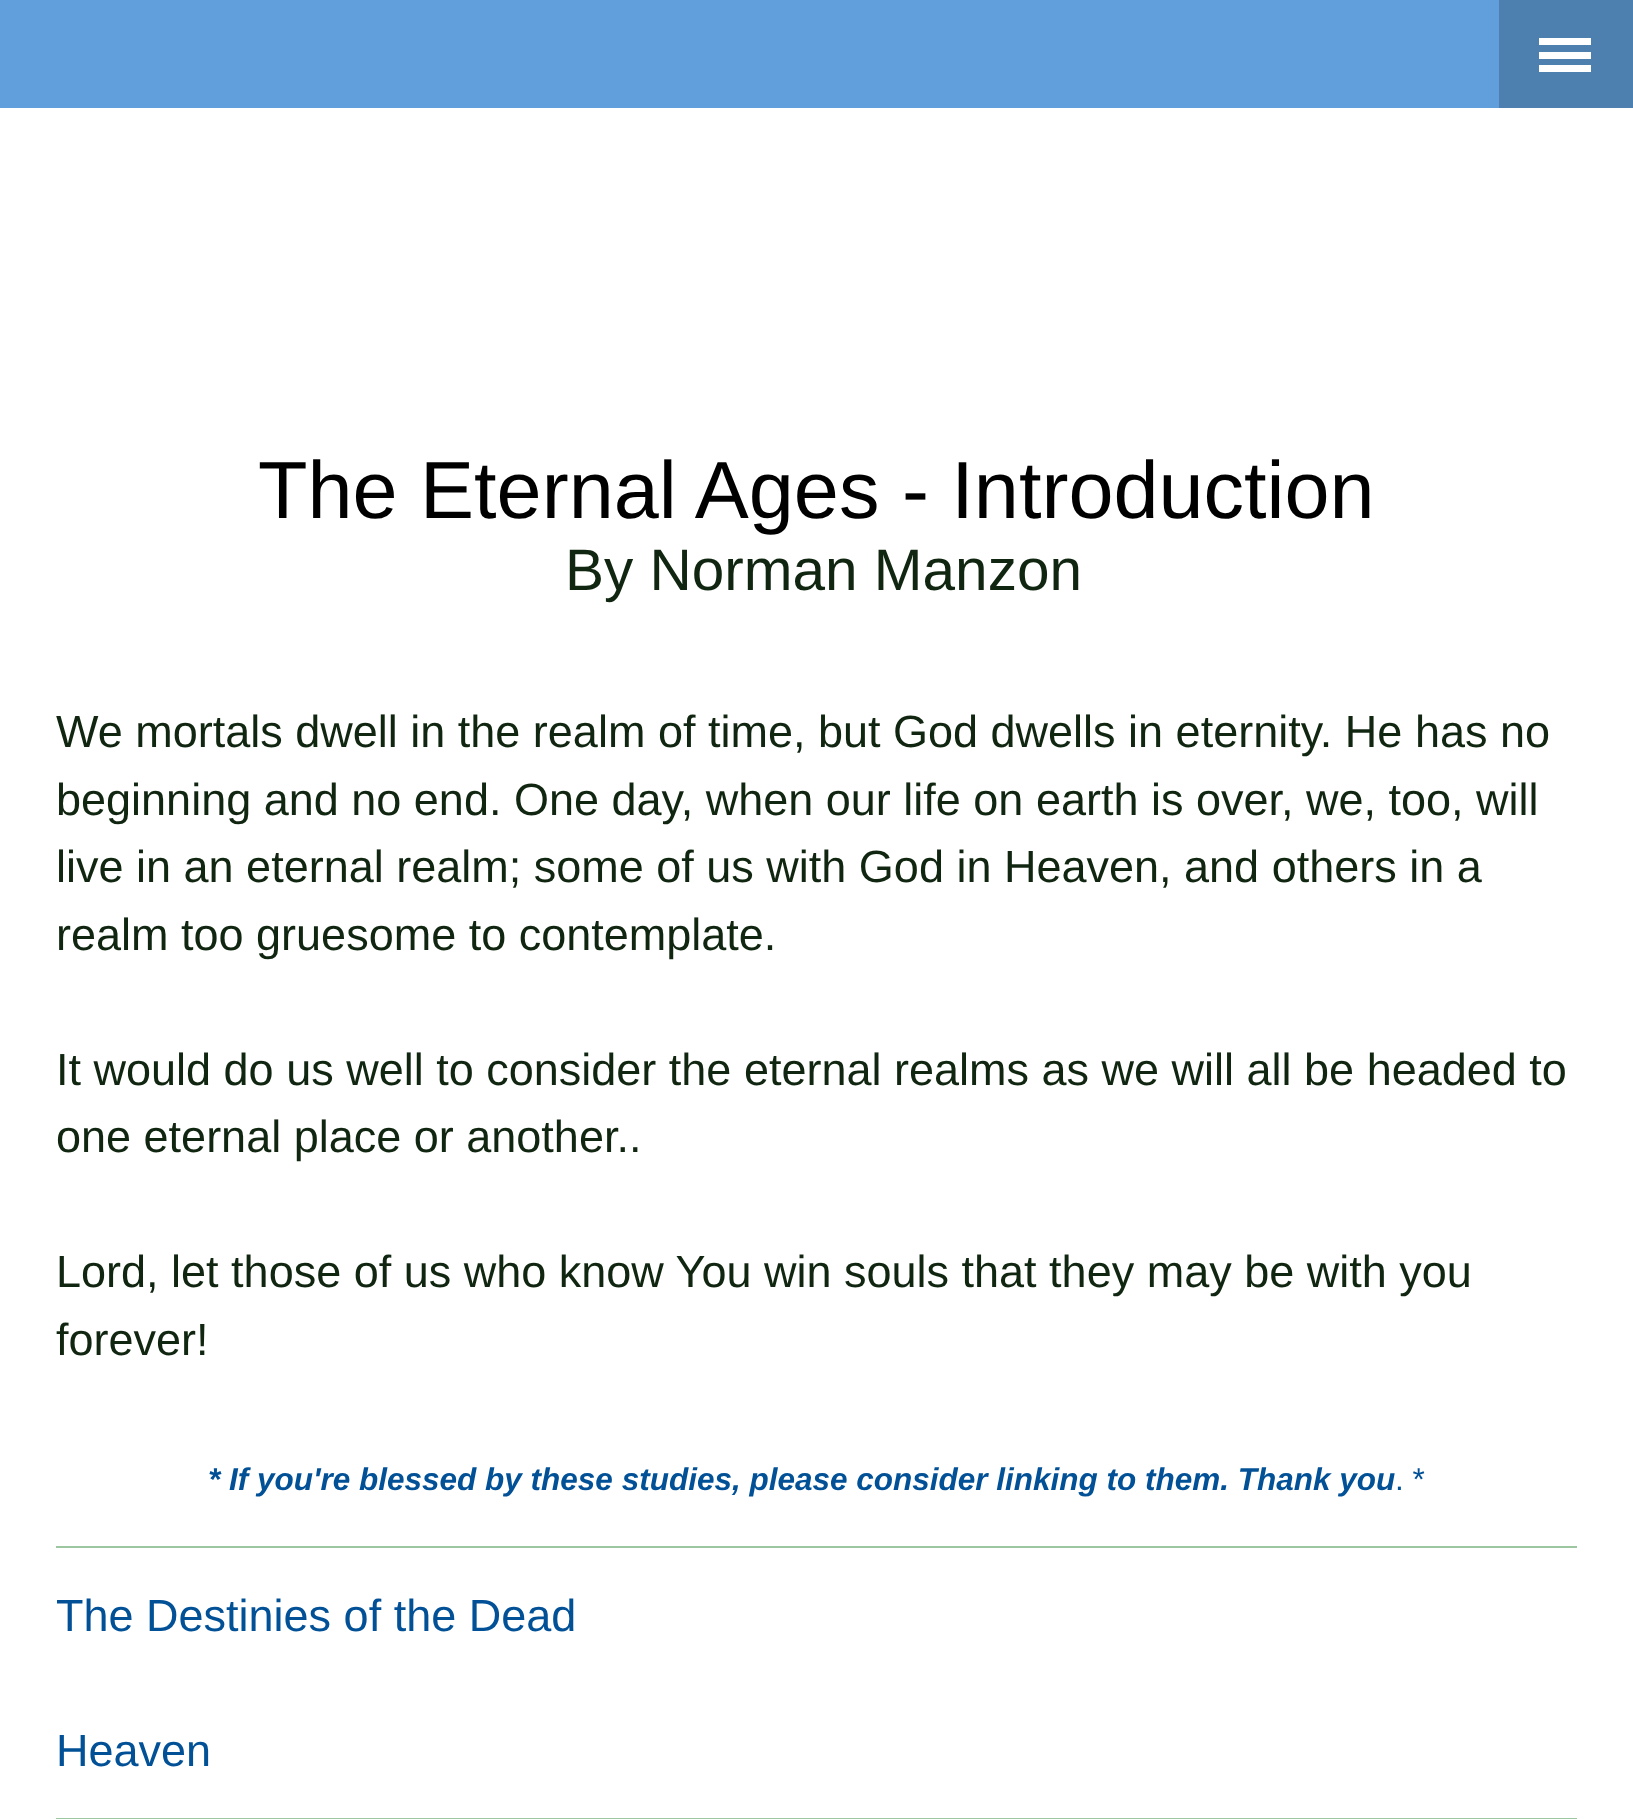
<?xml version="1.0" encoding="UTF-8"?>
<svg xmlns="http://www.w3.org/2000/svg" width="1633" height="1819">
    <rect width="100%" height="100%" fill="#FFFFFF"/>
    <rect x="0" y="0" width="1499" height="108" fill="#609FDB"/>
    <rect x="1499" y="0" width="134" height="108" fill="#4D7FAF"/>
    <rect x="1539" y="52" width="52" height="7" fill="#FFFFFF"/>
    <rect x="1539" y="38" width="52" height="7" fill="#FFFFFF"/>
    <rect x="1539" y="65" width="52" height="7" fill="#FFFFFF"/>
    <text x="258" y="518" font-family="Liberation Sans" font-size="81" fill="#000000">The Eternal Ages - Introduction</text>
    <text x="565" y="590" font-family="Liberation Sans" font-size="58.5" fill="#112611">By Norman Manzon</text>
    <text font-family="Liberation Sans" font-size="45" fill="#112611">
        <tspan x="56" y="747">We mortals dwell in the realm of time, but God dwells in eternity. He has no</tspan>
        <tspan x="56" y="815">beginning and no end. One day, when our life on earth is over, we, too, will</tspan>
        <tspan x="56" y="882">live in an eternal realm; some of us with God in Heaven, and others in a</tspan>
        <tspan x="56" y="950">realm too gruesome to contemplate.</tspan>
    </text>
    <text font-family="Liberation Sans" font-size="45" fill="#112611">
        <tspan x="56" y="1085">It would do us well to consider the eternal realms as we will all be headed to</tspan>
        <tspan x="56" y="1152">one eternal place or another..</tspan>
    </text>
    <text font-family="Liberation Sans" font-size="45" fill="#112611">
        <tspan x="56" y="1287">Lord, let those of us who know You win souls that they may be with you</tspan>
        <tspan x="56" y="1355">forever!</tspan>
    </text>
    <text x="208" y="1490" font-family="Liberation Sans" font-size="31.5" font-weight="700" font-style="italic" fill="#025197">* If you're blessed by these studies, please consider linking to them. Thank you</text>
    <text x="1395" y="1490" font-family="Liberation Sans" font-size="31.5" fill="#025197">. *</text>
    <rect x="56" y="1546" width="1521" height="2" fill="#9CC7A1"/>
    <text x="56" y="1631" font-family="Liberation Sans" font-size="45" fill="#025197">The Destinies of the Dead</text>
    <text x="56" y="1766" font-family="Liberation Sans" font-size="45" fill="#025197">Heaven</text>
    <rect x="56" y="1818" width="1521" height="1" fill="#9CC7A1"/>
</svg>
